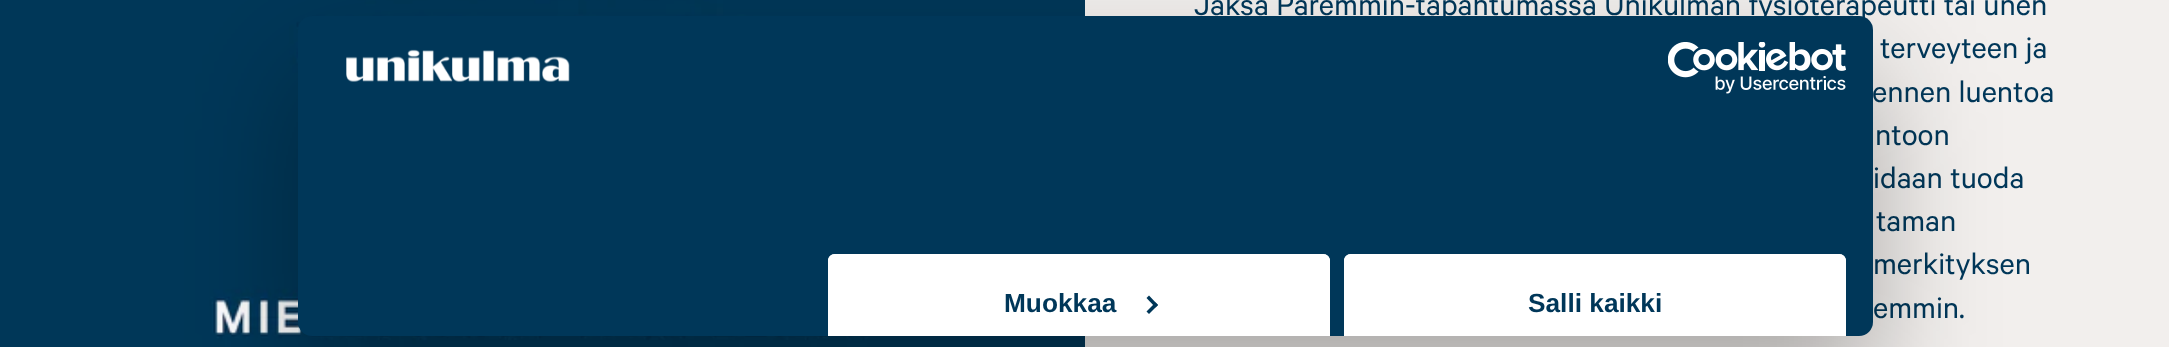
<?xml version="1.0" encoding="UTF-8"?>
<svg xmlns="http://www.w3.org/2000/svg" width="2169" height="347">
    <defs>
        <filter id="blur1" x="-50%" y="-200%" width="200%" height="500%"><feGaussianBlur stdDeviation="59.5"/></filter>
    </defs>
    <rect width="100%" height="100%" fill="#F2EFED"/>
    <image x="0" y="0" width="1085" height="347" href="img_01.png"/>
    <text x="1194" y="15" font-family="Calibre" font-size="33.25" fill="#003759">Jaksa Paremmin-tapahtumassa Unikulman fysioterapeutti tai unen</text>
    <text x="1880" y="58" font-family="Calibre" font-size="33.25" fill="#003759">terveyteen ja</text>
    <text x="1872" y="102" font-family="Calibre" font-size="33.25" fill="#003759">ennen luentoa</text>
    <text x="1875" y="145" font-family="Calibre" font-size="33.25" fill="#003759">ntoon</text>
    <text x="1873" y="188" font-family="Calibre" font-size="33.25" fill="#003759">idaan tuoda</text>
    <text x="1876" y="231" font-family="Calibre" font-size="33.25" fill="#003759">taman</text>
    <text font-family="Calibre" font-size="33.25" fill="#003759">
        <tspan x="1873" y="274">merkityksen</tspan>
        <tspan x="1873" y="318">emmin.</tspan>
    </text>
    <rect x="298" y="72" width="1575" height="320" rx="14" fill="#000000" fill-opacity="0.3" filter="url(#blur1)"/>
    <rect x="298" y="16" width="1575" height="320" rx="14" fill="#003759"/>
    <image x="346" y="49" width="224" height="33" href="img_02.png"/>
    <image x="1668" y="42" width="178" height="52" href="img_03.png"/>
    <path d="M 835 254 H 1323 C 1327 254 1330 257 1330 261 V 336 H 828 V 261 C 828 257 831 254 835 254 Z" fill="#FFFFFF"/>
    <path d="M 835 254 C 831 254 828 257 828 261 V 336 H 832 V 261 C 832 259 833 258 835 258 H 1323 C 1325 258 1326 259 1326 261 V 336 H 1330 V 261 C 1330 257 1327 254 1323 254 Z" fill="#FFFFFF"/>
    <text x="1004" y="312" font-family="Liberation Sans" font-size="26.25" font-weight="700" fill="#003759">Muokkaa</text>
    <path d="M 1149 295.5 L 1158 305 L 1155.5 307.5 L 1146.5 298 Z" fill="#003759"/>
    <path d="M 1155.5 302.5 L 1158 305 L 1149 314 L 1146.5 311.5 Z" fill="#003759"/>
    <path d="M 1351 254 H 1839 C 1843 254 1846 257 1846 261 V 336 H 1344 V 261 C 1344 257 1347 254 1351 254 Z" fill="#FFFFFF"/>
    <path d="M 1351 254 C 1347 254 1344 257 1344 261 V 336 H 1348 V 261 C 1348 259 1349 258 1351 258 H 1839 C 1841 258 1842 259 1842 261 V 336 H 1846 V 261 C 1846 257 1843 254 1839 254 Z" fill="#FFFFFF"/>
    <text x="1528" y="312" font-family="Liberation Sans" font-size="26.25" font-weight="700" fill="#003759">Salli kaikki</text>
</svg>
